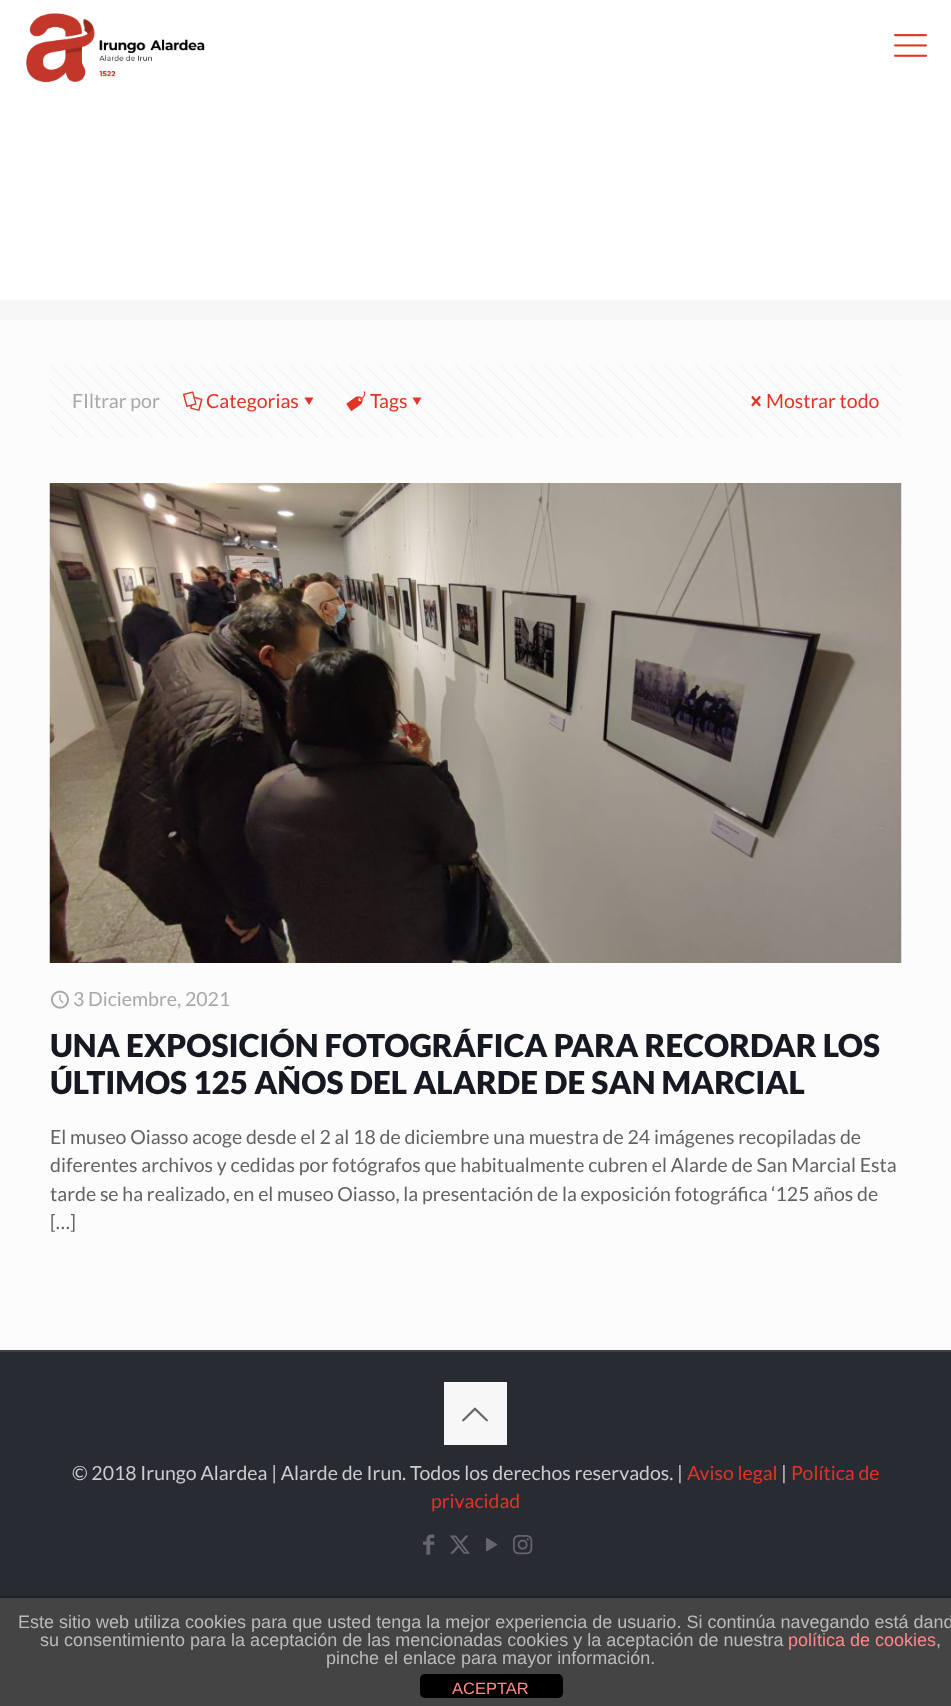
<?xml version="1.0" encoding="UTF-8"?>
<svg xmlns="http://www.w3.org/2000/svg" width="951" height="1706">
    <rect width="100%" height="100%" fill="#FCFCFC"/>
    <rect x="0" y="0" width="951" height="300" fill="#FFFFFF"/>
    <image x="26" y="13" width="179" height="70" href="img_01.png"/>
    <image x="894" y="34" width="33" height="23" href="img_02.png"/>
    <rect x="0" y="300" width="951" height="20" fill="#F7F7F7"/>
    <image x="50" y="365" width="851" height="73" href="img_03.png"/>
    <text x="72" y="408" font-family="Lato" font-size="19.5" fill="#A8A8A8">FIltrar por</text>
    <image x="183" y="391" width="20" height="20" href="img_04.png"/>
    <text x="206" y="408" font-family="Lato" font-size="19.5" fill="#E23325">Categorias</text>
    <path d="M 313.5 397.5 L 309 405 L 304.5 397.5 Z" fill="#E23325"/>
    <image x="346" y="391" width="20" height="20" href="img_05.png"/>
    <text x="370" y="408" font-family="Lato" font-size="19.5" fill="#E23325">Tags</text>
    <path d="M 421.5 397.5 L 417 405 L 412.5 397.5 Z" fill="#E23325"/>
    <image x="751" y="396" width="10" height="11" href="img_06.png"/>
    <text x="766" y="408" font-family="Lato" font-size="19.5" fill="#E23325">Mostrar todo</text>
    <image x="49" y="483" width="853" height="480" href="img_07.png"/>
    <image x="51" y="990" width="18" height="19" href="img_08.png"/>
    <text x="73" y="1006" font-family="Lato" font-size="19.5" fill="#A8A8A8">3 Diciembre, 2021</text>
    <text font-family="Lato" font-size="31.5" font-weight="900" fill="#161922">
        <tspan x="50" y="1057">UNA EXPOSICIÓN FOTOGRÁFICA PARA RECORDAR LOS</tspan>
        <tspan x="50" y="1094">ÚLTIMOS 125 AÑOS DEL ALARDE DE SAN MARCIAL</tspan>
    </text>
    <text font-family="Lato" font-size="19.5" fill="#626262">
        <tspan x="50" y="1144">El museo Oiasso acoge desde el 2 al 18 de diciembre una muestra de 24 imágenes recopiladas de</tspan>
        <tspan x="50" y="1172">diferentes archivos y cedidas por fotógrafos que habitualmente cubren el Alarde de San Marcial Esta</tspan>
        <tspan x="50" y="1201">tarde se ha realizado, en el museo Oiasso, la presentación de la exposición fotográfica ‘125 años de</tspan>
        <tspan x="50" y="1229">[…]</tspan>
    </text>
    <rect x="0" y="1352" width="951" height="244" fill="#292B33"/>
    <rect x="0" y="1350" width="951" height="2" fill="#3E4047"/>
    <rect x="444" y="1382" width="63" height="63" fill="#F7F7F7"/>
    <image x="462" y="1407" width="26" height="15" href="img_09.png"/>
    <text x="72" y="1480" font-family="Lato" font-size="19.5" fill="#CCCCCC">© 2018 Irungo Alardea | Alarde de Irun. Todos los derechos reservados. |</text>
    <text x="687" y="1480" font-family="Lato" font-size="19.5" fill="#E23325">Aviso legal</text>
    <text x="781" y="1480" font-family="Lato" font-size="19.5" fill="#CCCCCC">|</text>
    <text x="791" y="1480" font-family="Lato" font-size="19.5" fill="#E23325">Política de</text>
    <text x="431" y="1508" font-family="Lato" font-size="19.5" fill="#E23325">privacidad</text>
    <image x="423" y="1534" width="12" height="21" href="img_10.png"/>
    <image x="449" y="1535" width="21" height="19" href="img_11.png"/>
    <image x="486" y="1537" width="12" height="15" href="img_12.png"/>
    <image x="513" y="1535" width="20" height="20" href="img_13.png"/>
    <rect x="0" y="1598" width="951" height="108" fill="#444444"/>
    <rect x="0" y="1596" width="951" height="2" fill="#222222"/>
    <text x="18" y="1628" font-family="Liberation Sans" font-size="18" fill="#BBBBBB">Este sitio web utiliza cookies para que usted tenga la mejor experiencia de usuario. Si continúa navegando está dand</text>
    <text x="40" y="1646" font-family="Liberation Sans" font-size="18" fill="#BBBBBB">su consentimiento para la aceptación de las mencionadas cookies y la aceptación de nuestra</text>
    <text x="788" y="1646" font-family="Liberation Sans" font-size="18" fill="#FF8888">política de cookies</text>
    <text x="936" y="1646" font-family="Liberation Sans" font-size="18" fill="#BBBBBB">,</text>
    <text x="326" y="1664" font-family="Liberation Sans" font-size="18" fill="#BBBBBB">pinche el enlace para mayor información.</text>
    <rect x="420" y="1674" width="143" height="24" rx="5" fill="#000000"/>
    <text x="452" y="1694" font-family="Liberation Sans" font-size="16.5" fill="#FF8888">ACEPTAR</text>
</svg>
